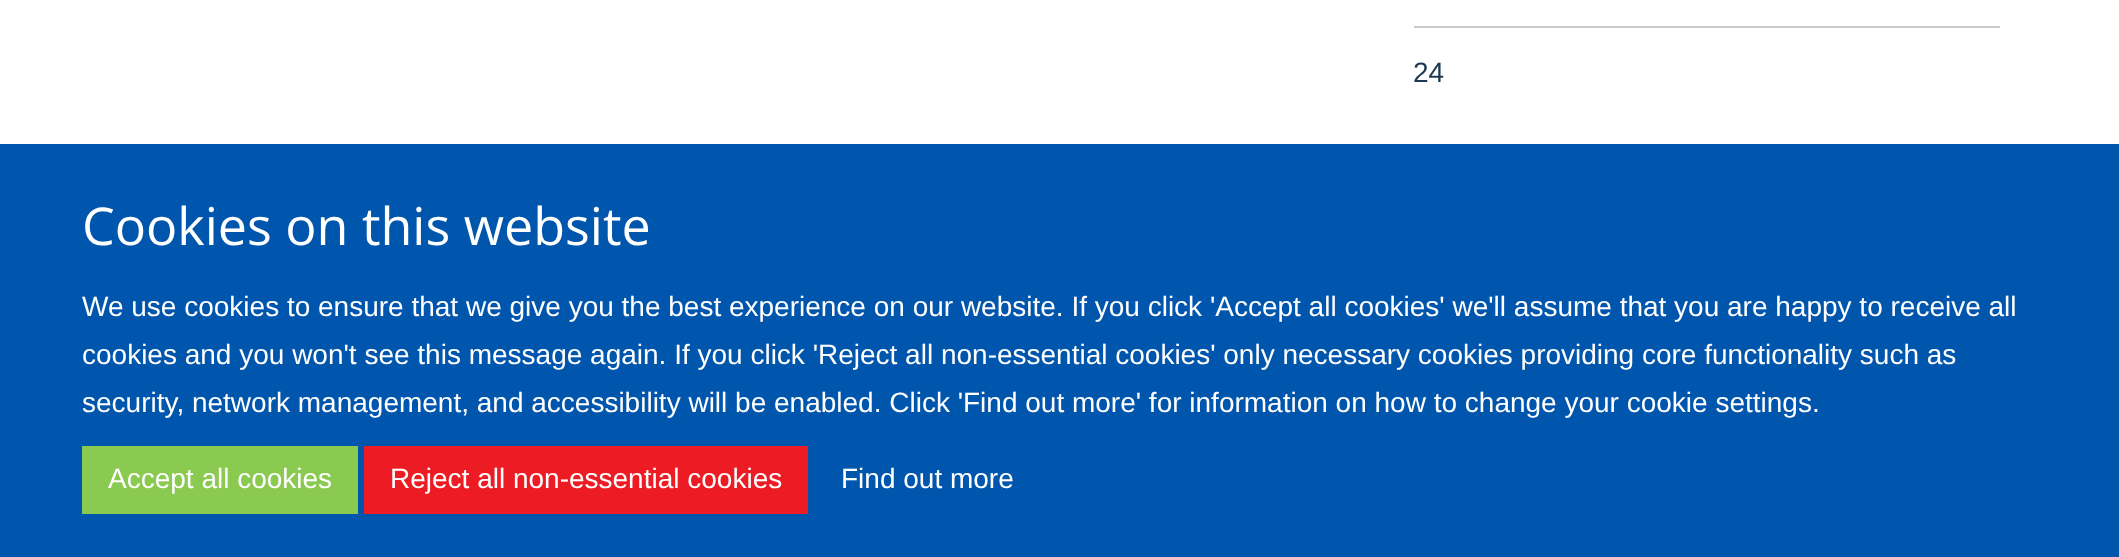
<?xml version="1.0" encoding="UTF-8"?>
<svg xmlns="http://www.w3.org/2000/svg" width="2119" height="557">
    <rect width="100%" height="100%" fill="#FFFFFF"/>
    <rect x="1414" y="26" width="586" height="2" fill="#C6CACF"/>
    <text x="1413" y="82" font-family="Liberation Sans" font-size="28" fill="#1D3850">24</text>
    <rect x="0" y="144" width="2119" height="413" fill="#0055AD"/>
    <text x="82" y="245" font-family="Open Sans" font-size="52" fill="#FFFFFF">Cookies on this website</text>
    <text font-family="Liberation Sans" font-size="28" fill="#FFFFFF">
        <tspan x="82" y="316">We use cookies to ensure that we give you the best experience on our website. If you click 'Accept all cookies' we'll assume that you are happy to receive all</tspan>
        <tspan x="82" y="364">cookies and you won't see this message again. If you click 'Reject all non-essential cookies' only necessary cookies providing core functionality such as</tspan>
        <tspan x="82" y="412">security, network management, and accessibility will be enabled. Click 'Find out more' for information on how to change your cookie settings.</tspan>
    </text>
    <rect x="82" y="446" width="276" height="68" fill="#8BCA50"/>
    <text x="108" y="488" font-family="Liberation Sans" font-size="28" fill="#FFFFFF">Accept all cookies</text>
    <rect x="364" y="446" width="444" height="68" fill="#ED1C24"/>
    <text x="390" y="488" font-family="Liberation Sans" font-size="28" fill="#FFFFFF">Reject all non-essential cookies</text>
    <text x="841" y="488" font-family="Liberation Sans" font-size="28" fill="#FFFFFF">Find out more</text>
</svg>
